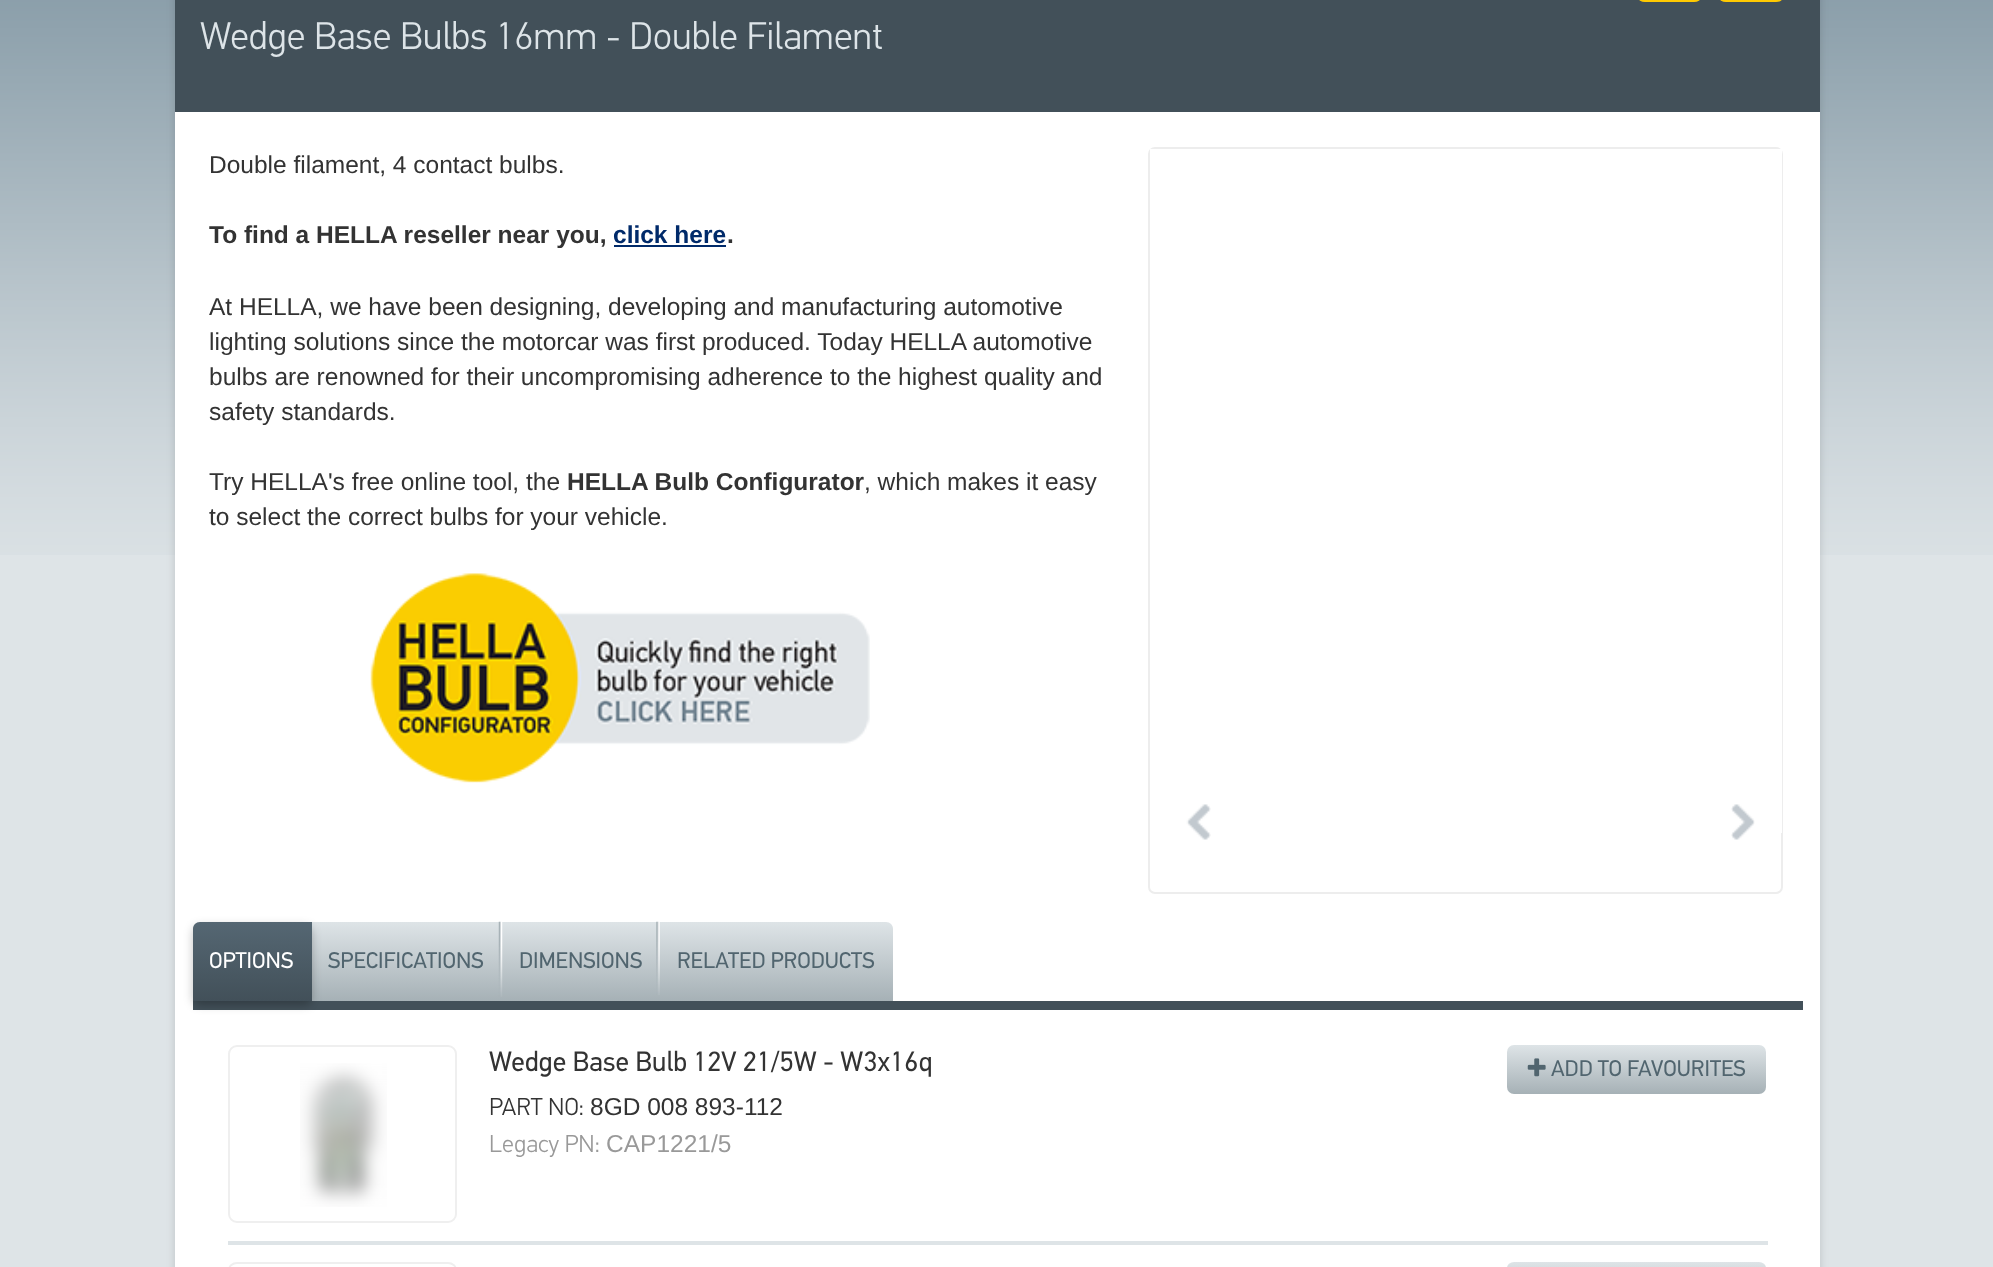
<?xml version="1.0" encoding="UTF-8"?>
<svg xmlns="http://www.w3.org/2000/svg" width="1993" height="1267">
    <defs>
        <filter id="blur1" x="-50%" y="-200%" width="200%" height="500%"><feGaussianBlur stdDeviation="4.5"/></filter>
        <linearGradient id="g1" gradientUnits="userSpaceOnUse" x1="1670" y1="-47" x2="1670" y2="1.8"><stop offset="0" stop-color="#FFE037"/><stop offset="1" stop-color="#FFC900"/></linearGradient>
        <linearGradient id="g2" gradientUnits="userSpaceOnUse" x1="1751" y1="-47" x2="1751" y2="1.8"><stop offset="0" stop-color="#FFE037"/><stop offset="1" stop-color="#FFC900"/></linearGradient>
        <linearGradient id="g3" gradientUnits="userSpaceOnUse" x1="543" y1="922" x2="543" y2="1001"><stop offset="0" stop-color="#DEE4E7"/><stop offset="1" stop-color="#A6B1B6"/></linearGradient>
        <filter id="blur2" x="-50%" y="-200%" width="200%" height="500%"><feGaussianBlur stdDeviation="5"/></filter>
        <linearGradient id="g4" gradientUnits="userSpaceOnUse" x1="252" y1="922" x2="252" y2="1001"><stop offset="0" stop-color="#556773"/><stop offset="1" stop-color="#425059"/></linearGradient>
        <linearGradient id="g5" gradientUnits="userSpaceOnUse" x1="1636" y1="1045" x2="1636" y2="1094"><stop offset="0" stop-color="#DEE4E7"/><stop offset="1" stop-color="#A6B1B6"/></linearGradient>
        <linearGradient id="g6" gradientUnits="userSpaceOnUse" x1="1636" y1="1262" x2="1636" y2="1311"><stop offset="0" stop-color="#DEE4E7"/><stop offset="1" stop-color="#A6B1B6"/></linearGradient>
    </defs>
    <rect width="100%" height="100%" fill="#DEE4E7"/>
    <image x="0" y="0" width="1993" height="555" href="img_01.png"/>
    <rect x="175" y="-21" width="1645" height="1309" rx="7" fill="#000000" fill-opacity="0.15" filter="url(#blur1)"/>
    <rect x="175" y="112" width="1645" height="1155" fill="#FFFFFF"/>
    <rect x="175" y="0" width="1645" height="112" fill="#425059"/>
    <rect x="1638" y="-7" width="63" height="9" rx="7" fill="url(#g1)"/>
    <rect x="1719" y="-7" width="64" height="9" rx="7" fill="url(#g2)"/>
    <text x="200" y="49" font-family="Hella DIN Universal" font-size="38.5" font-weight="300" fill="#DDE4E8">Wedge Base Bulbs 16mm - Double Filament</text>
    <text x="209" y="173" font-family="Liberation Sans" font-size="24.5" fill="#333333">Double filament, 4 contact bulbs.</text>
    <text x="209" y="243" font-family="Liberation Sans" font-size="24.5" font-weight="700" fill="#333333">To find a HELLA reseller near you,</text>
    <text x="613" y="243" font-family="Liberation Sans" font-size="24.5" font-weight="700" fill="#002A6A">click here</text>
    <text x="727" y="243" font-family="Liberation Sans" font-size="24.5" font-weight="700" fill="#333333">.</text>
    <rect x="614" y="245" width="112" height="2" fill="#002A6A"/>
    <text font-family="Liberation Sans" font-size="24.5" fill="#333333">
        <tspan x="209" y="315">At HELLA, we have been designing, developing and manufacturing automotive</tspan>
        <tspan x="209" y="350">lighting solutions since the motorcar was first produced. Today HELLA automotive</tspan>
        <tspan x="209" y="385">bulbs are renowned for their uncompromising adherence to the highest quality and</tspan>
        <tspan x="209" y="420">safety standards.</tspan>
    </text>
    <text x="209" y="490" font-family="Liberation Sans" font-size="24.5" fill="#333333">Try HELLA's free online tool, the</text>
    <text x="567" y="490" font-family="Liberation Sans" font-size="24.5" font-weight="700" fill="#333333">HELLA Bulb Configurator</text>
    <text x="864" y="490" font-family="Liberation Sans" font-size="24.5" fill="#333333">, which makes it easy</text>
    <text x="209" y="525" font-family="Liberation Sans" font-size="24.5" fill="#333333">to select the correct bulbs for your vehicle.</text>
    <image x="370" y="573" width="500" height="210" href="img_02.png"/>
    <rect x="1149" y="148" width="633" height="745" rx="6" fill="none" stroke="#EDEDED" stroke-width="2"/>
    <rect x="1150" y="149" width="632" height="684" fill="#FFFFFF"/>
    <image x="1186" y="804" width="25" height="36" href="img_03.png"/>
    <image x="1731" y="804" width="24" height="36" href="img_04.png"/>
    <rect x="193" y="1001" width="1610" height="9" fill="#425059"/>
    <path d="M 200 922 H 886 C 890 922 893 925 893 929 V 1001 H 193 V 929 C 193 925 196 922 200 922 Z" fill="url(#g3)"/>
    <rect x="193" y="926" width="119" height="79" rx="7" fill="#000000" fill-opacity="0.25" filter="url(#blur2)"/>
    <path d="M 200 922 H 312 V 1001 H 193 V 929 C 193 925 196 922 200 922 Z" fill="url(#g4)"/>
    <text x="209" y="968" font-family="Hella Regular" font-size="22.75" fill="#FFFFFF">OPTIONS</text>
    <image x="498" y="921" width="5" height="76" href="img_05.png"/>
    <text x="328" y="968" font-family="Hella Regular" font-size="22.75" fill="#51656F">SPECIFICATIONS</text>
    <image x="656" y="921" width="4" height="74" href="img_06.png"/>
    <text x="519" y="968" font-family="Hella Regular" font-size="22.75" fill="#51656F">DIMENSIONS</text>
    <text x="677" y="968" font-family="Hella Regular" font-size="22.75" fill="#51656F">RELATED PRODUCTS</text>
    <rect x="228" y="1241" width="1540" height="4" fill="#DEE4E7"/>
    <rect x="229" y="1046" width="227" height="176" rx="8" fill="none" stroke="#EFEFEF" stroke-width="2"/>
    <image x="300" y="1063" width="87" height="144" href="img_07.png"/>
    <text x="489" y="1071" font-family="Hella Regular" font-size="28" fill="#333333">Wedge Base Bulb 12V 21/5W - W3x16q</text>
    <text x="489" y="1115" font-family="Hella DIN Universal" font-size="24.5" font-weight="300" fill="#333333">PART NO:</text>
    <text x="590" y="1115" font-family="Liberation Sans" font-size="24.5" fill="#333333">8GD 008 893-112</text>
    <text x="489" y="1152" font-family="Hella DIN Universal" font-size="24.5" font-weight="300" fill="#999999">Legacy PN:</text>
    <text x="606" y="1152" font-family="Liberation Sans" font-size="24.5" fill="#999999">CAP1221/5</text>
    <rect x="1507" y="1045" width="259" height="49" rx="7" fill="url(#g5)"/>
    <image x="1527" y="1058" width="19" height="19" href="img_08.png"/>
    <text x="1551" y="1076" font-family="Hella Regular" font-size="22.75" fill="#51656F">ADD TO FAVOURITES</text>
    <rect x="229" y="1263" width="227" height="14" rx="8" fill="none" stroke="#EFEFEF" stroke-width="2"/>
    <rect x="1507" y="1262" width="259" height="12" rx="7" fill="url(#g6)"/>
</svg>
